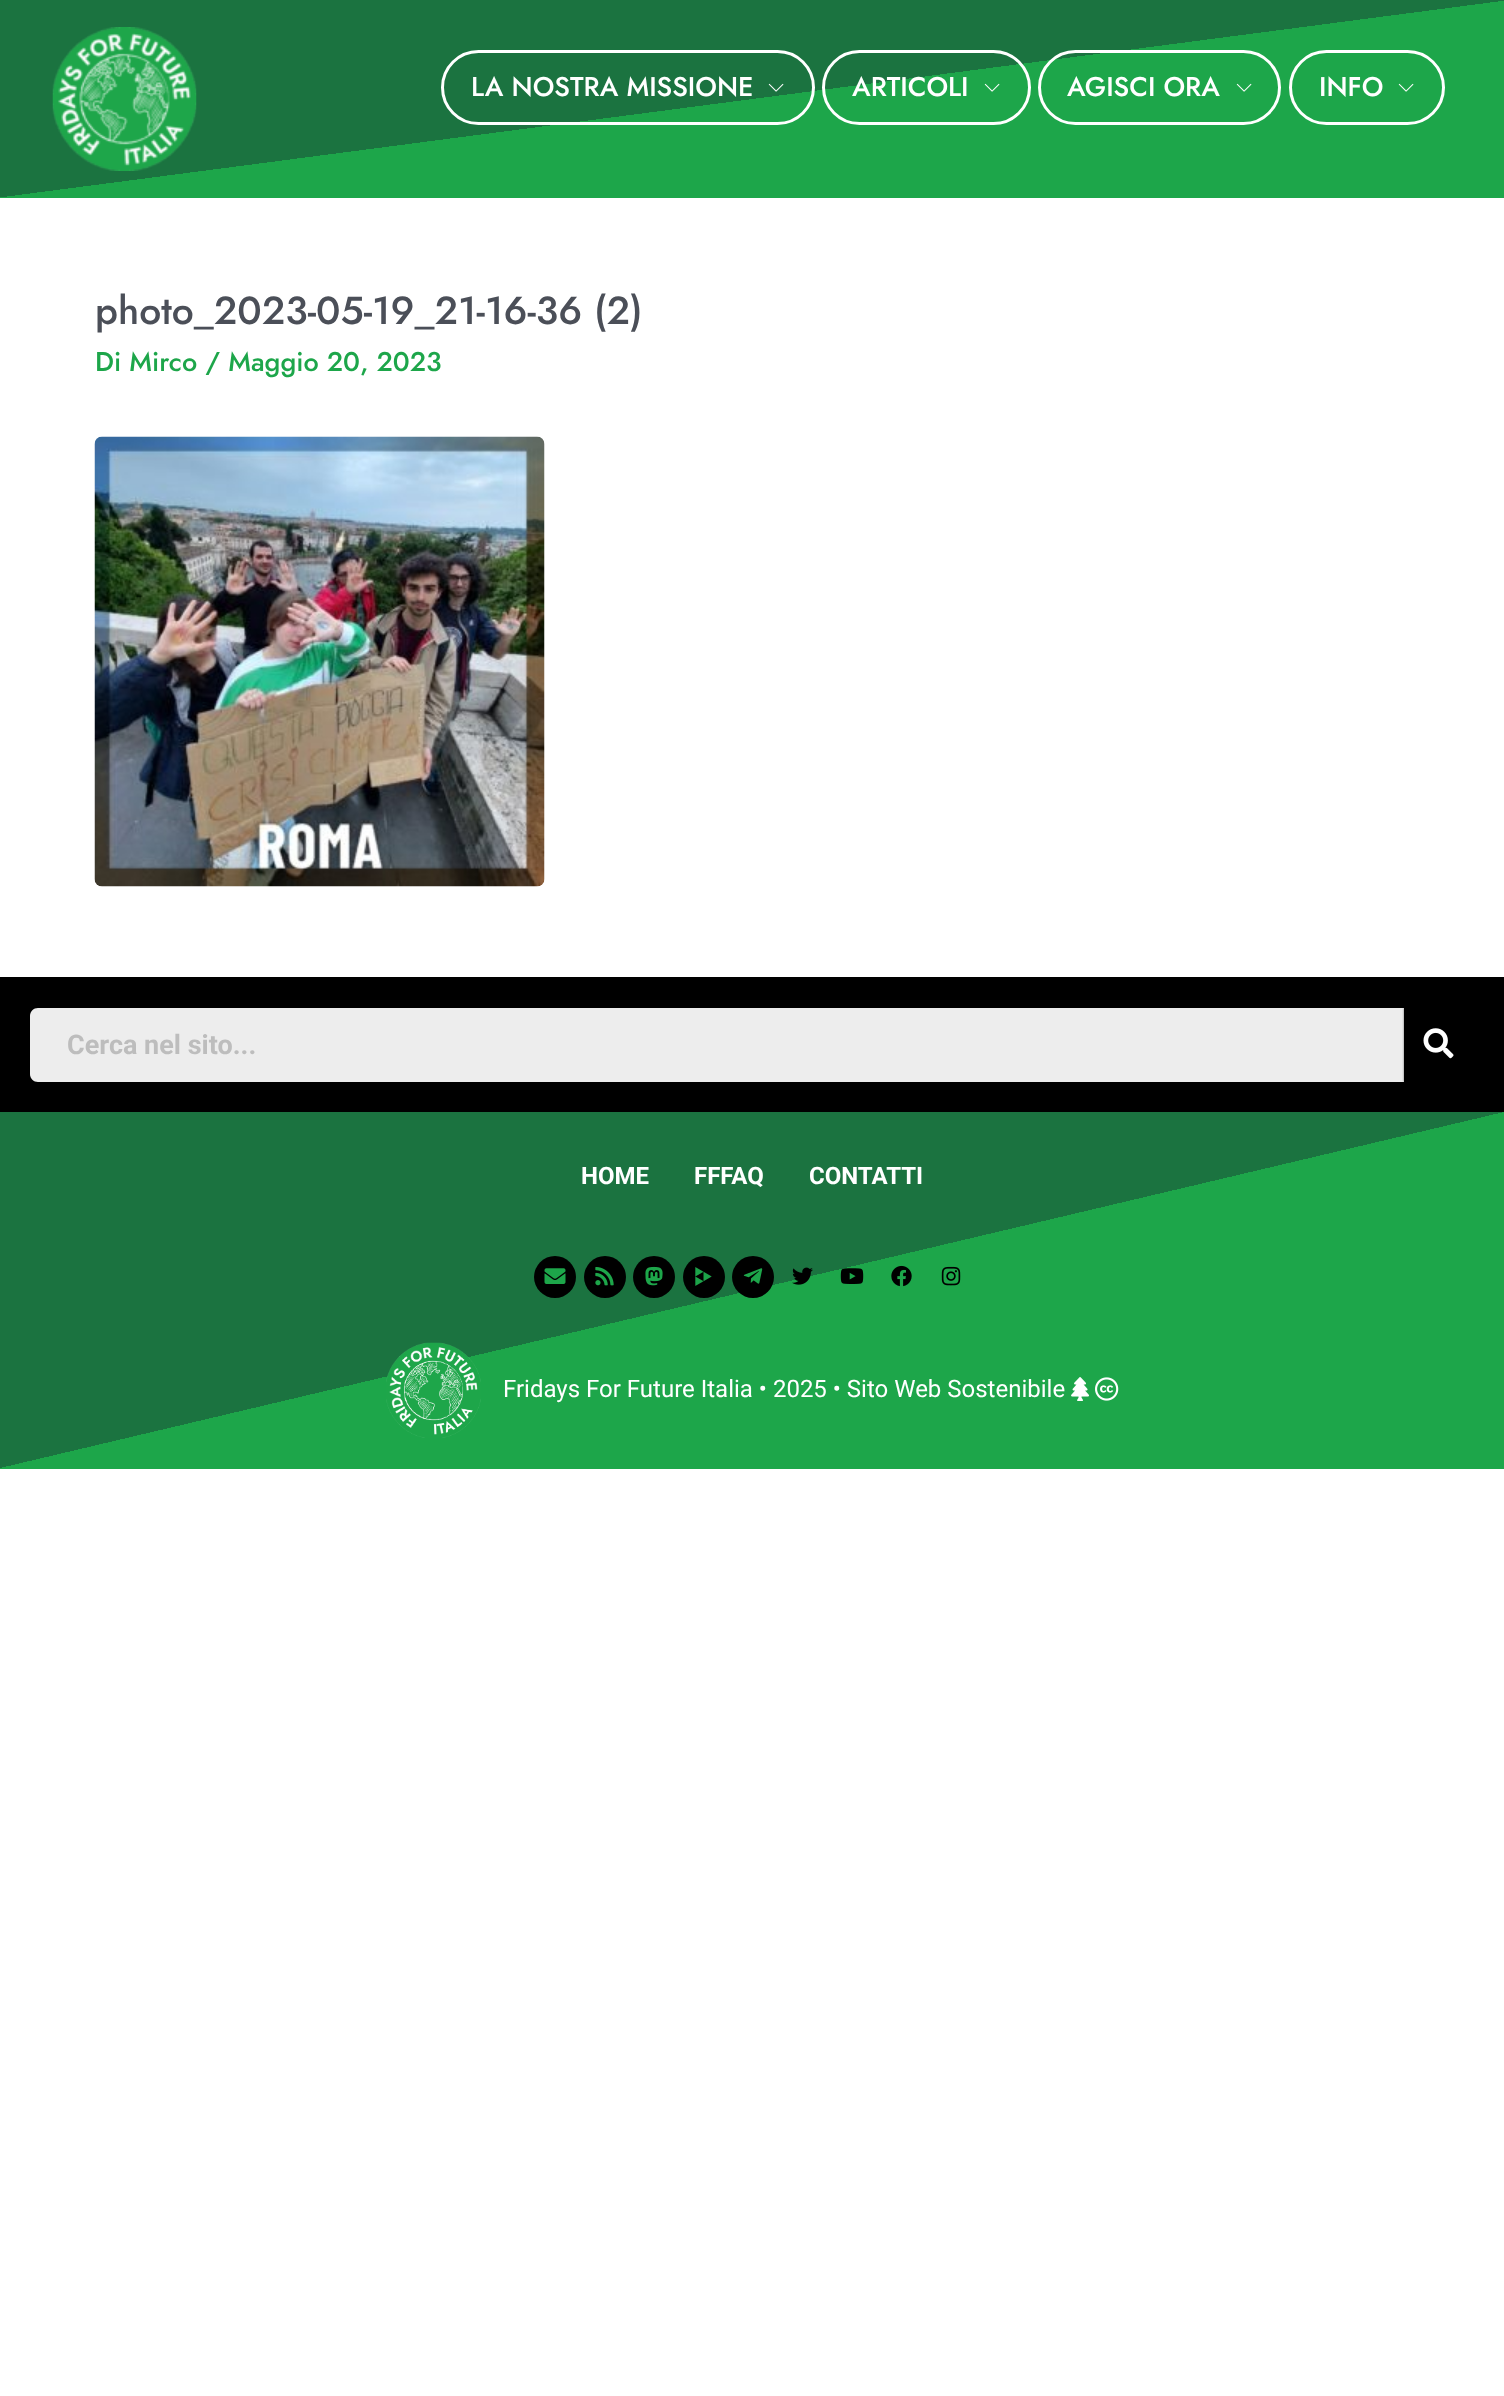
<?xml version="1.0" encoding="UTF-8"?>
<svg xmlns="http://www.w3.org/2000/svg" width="1504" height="2396">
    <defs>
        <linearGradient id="g1" gradientUnits="userSpaceOnUse" x1="727" y1="-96" x2="778" y2="294"><stop offset="0.5" stop-color="#1B7340"/><stop offset="0.5" stop-color="#1DA64A"/></linearGradient>
        <clipPath id="clip1"><rect x="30" y="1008" width="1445" height="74" rx="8"/></clipPath>
        <clipPath id="clip2"><path d="M 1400 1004 H 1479 V 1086 H 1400 Z M 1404 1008 H 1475 V 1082 H 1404 Z" clip-rule="evenodd"/></clipPath>
        <filter id="blur1" x="-50%" y="-200%" width="200%" height="500%"><feGaussianBlur stdDeviation="1"/></filter>
        <linearGradient id="g2" gradientUnits="userSpaceOnUse" x1="672" y1="952" x2="832" y2="1628"><stop offset="0.5" stop-color="#1B7340"/><stop offset="0.5" stop-color="#1DA64A"/></linearGradient>
    </defs>
    <rect width="100%" height="100%" fill="#FFFFFF"/>
    <rect x="0" y="0" width="1504" height="198" fill="url(#g1)"/>
    <image x="52" y="27" width="145" height="144" href="img_01.png"/>
    <rect x="442.5" y="51.5" width="371" height="72" rx="36" fill="none" stroke="#FFFFFF" stroke-width="3"/>
    <text x="471" y="96" font-family="Jost" font-size="27" font-weight="500" fill="#FFFFFF">LA NOSTRA MISSIONE</text>
    <image x="768" y="83" width="16" height="9" href="img_02.png"/>
    <rect x="823.5" y="51.5" width="206" height="72" rx="36" fill="none" stroke="#FFFFFF" stroke-width="3"/>
    <text x="852" y="96" font-family="Jost" font-size="27" font-weight="500" fill="#FFFFFF">ARTICOLI</text>
    <image x="984" y="83" width="16" height="9" href="img_03.png"/>
    <rect x="1039.5" y="51.5" width="240" height="72" rx="36" fill="none" stroke="#FFFFFF" stroke-width="3"/>
    <text x="1067" y="96" font-family="Jost" font-size="27" font-weight="500" fill="#FFFFFF">AGISCI ORA</text>
    <image x="1236" y="83" width="16" height="9" href="img_03.png"/>
    <rect x="1290.5" y="51.5" width="153" height="72" rx="36" fill="none" stroke="#FFFFFF" stroke-width="3"/>
    <text x="1319" y="96" font-family="Jost" font-size="27" font-weight="500" fill="#FFFFFF">INFO</text>
    <image x="1398" y="83" width="16" height="9" href="img_03.png"/>
    <text x="95" y="324" font-family="Jost" font-size="39" font-weight="500" fill="#4B4F58">photo_2023-05-19_21-16-36 (2)</text>
    <text x="95" y="371" font-family="Jost" font-size="27" font-weight="500" fill="#1DA64A">Di Mirco / Maggio 20, 2023</text>
    <image x="94" y="436" width="451" height="451" href="img_04.png"/>
    <rect x="0" y="977" width="1504" height="135" fill="#000000"/>
    <path d="M 38 1008 H 1404 V 1082 H 38 C 33.5 1082 30 1078.5 30 1074 V 1016 C 30 1011.5 33.5 1008 38 1008 Z" fill="#EDEDED"/>
    <text x="67" y="1054" font-family="Roboto" font-size="27" font-weight="700" fill="#BDBDBD">Cerca nel sito...</text>
    <g clip-path="url(#clip1)">
        <g clip-path="url(#clip2)">
            <rect x="1404" y="1008" width="71" height="74" fill="#000000" fill-opacity="0.5" filter="url(#blur1)"/>
        </g>
    </g>
    <image x="1423" y="1028" width="31" height="31" href="img_05.png"/>
    <rect x="0" y="1112" width="1504" height="357" fill="url(#g2)"/>
    <text x="581" y="1184" font-family="Roboto" font-size="24" font-weight="700" fill="#FFFFFF">HOME</text>
    <text x="694" y="1184" font-family="Roboto" font-size="24" font-weight="700" fill="#FFFFFF">FFFAQ</text>
    <text x="809" y="1184" font-family="Roboto" font-size="24" font-weight="700" fill="#FFFFFF">CONTATTI</text>
    <circle cx="555" cy="1277" r="21" fill="#000000"/>
    <image x="544" y="1268" width="22" height="16" href="img_06.png"/>
    <circle cx="605" cy="1277" r="21" fill="#000000"/>
    <image x="595" y="1267" width="19" height="19" href="img_07.png"/>
    <circle cx="654" cy="1277" r="21" fill="#000000"/>
    <image x="645" y="1266" width="18" height="20" href="img_08.png"/>
    <circle cx="704" cy="1277" r="21" fill="#000000"/>
    <image x="695" y="1267" width="17" height="19" href="img_09.png"/>
    <circle cx="753" cy="1277" r="21" fill="#000000"/>
    <image x="743" y="1268" width="20" height="16" href="img_10.png"/>
    <image x="792" y="1267" width="21" height="18" href="img_11.png"/>
    <image x="840" y="1268" width="24" height="16" href="img_12.png"/>
    <image x="891" y="1265" width="21" height="22" href="img_13.png"/>
    <image x="941" y="1266" width="20" height="20" href="img_14.png"/>
    <image x="386" y="1342" width="95" height="96" href="img_15.png"/>
    <text x="503" y="1397" font-family="Roboto" font-size="24" fill="#FFFFFF">Fridays For Future Italia • 2025 • Sito Web Sostenibile</text>
    <image x="1071" y="1377" width="18" height="24" href="img_16.png"/>
    <image x="1095" y="1377" width="24" height="24" href="img_17.png"/>
</svg>
